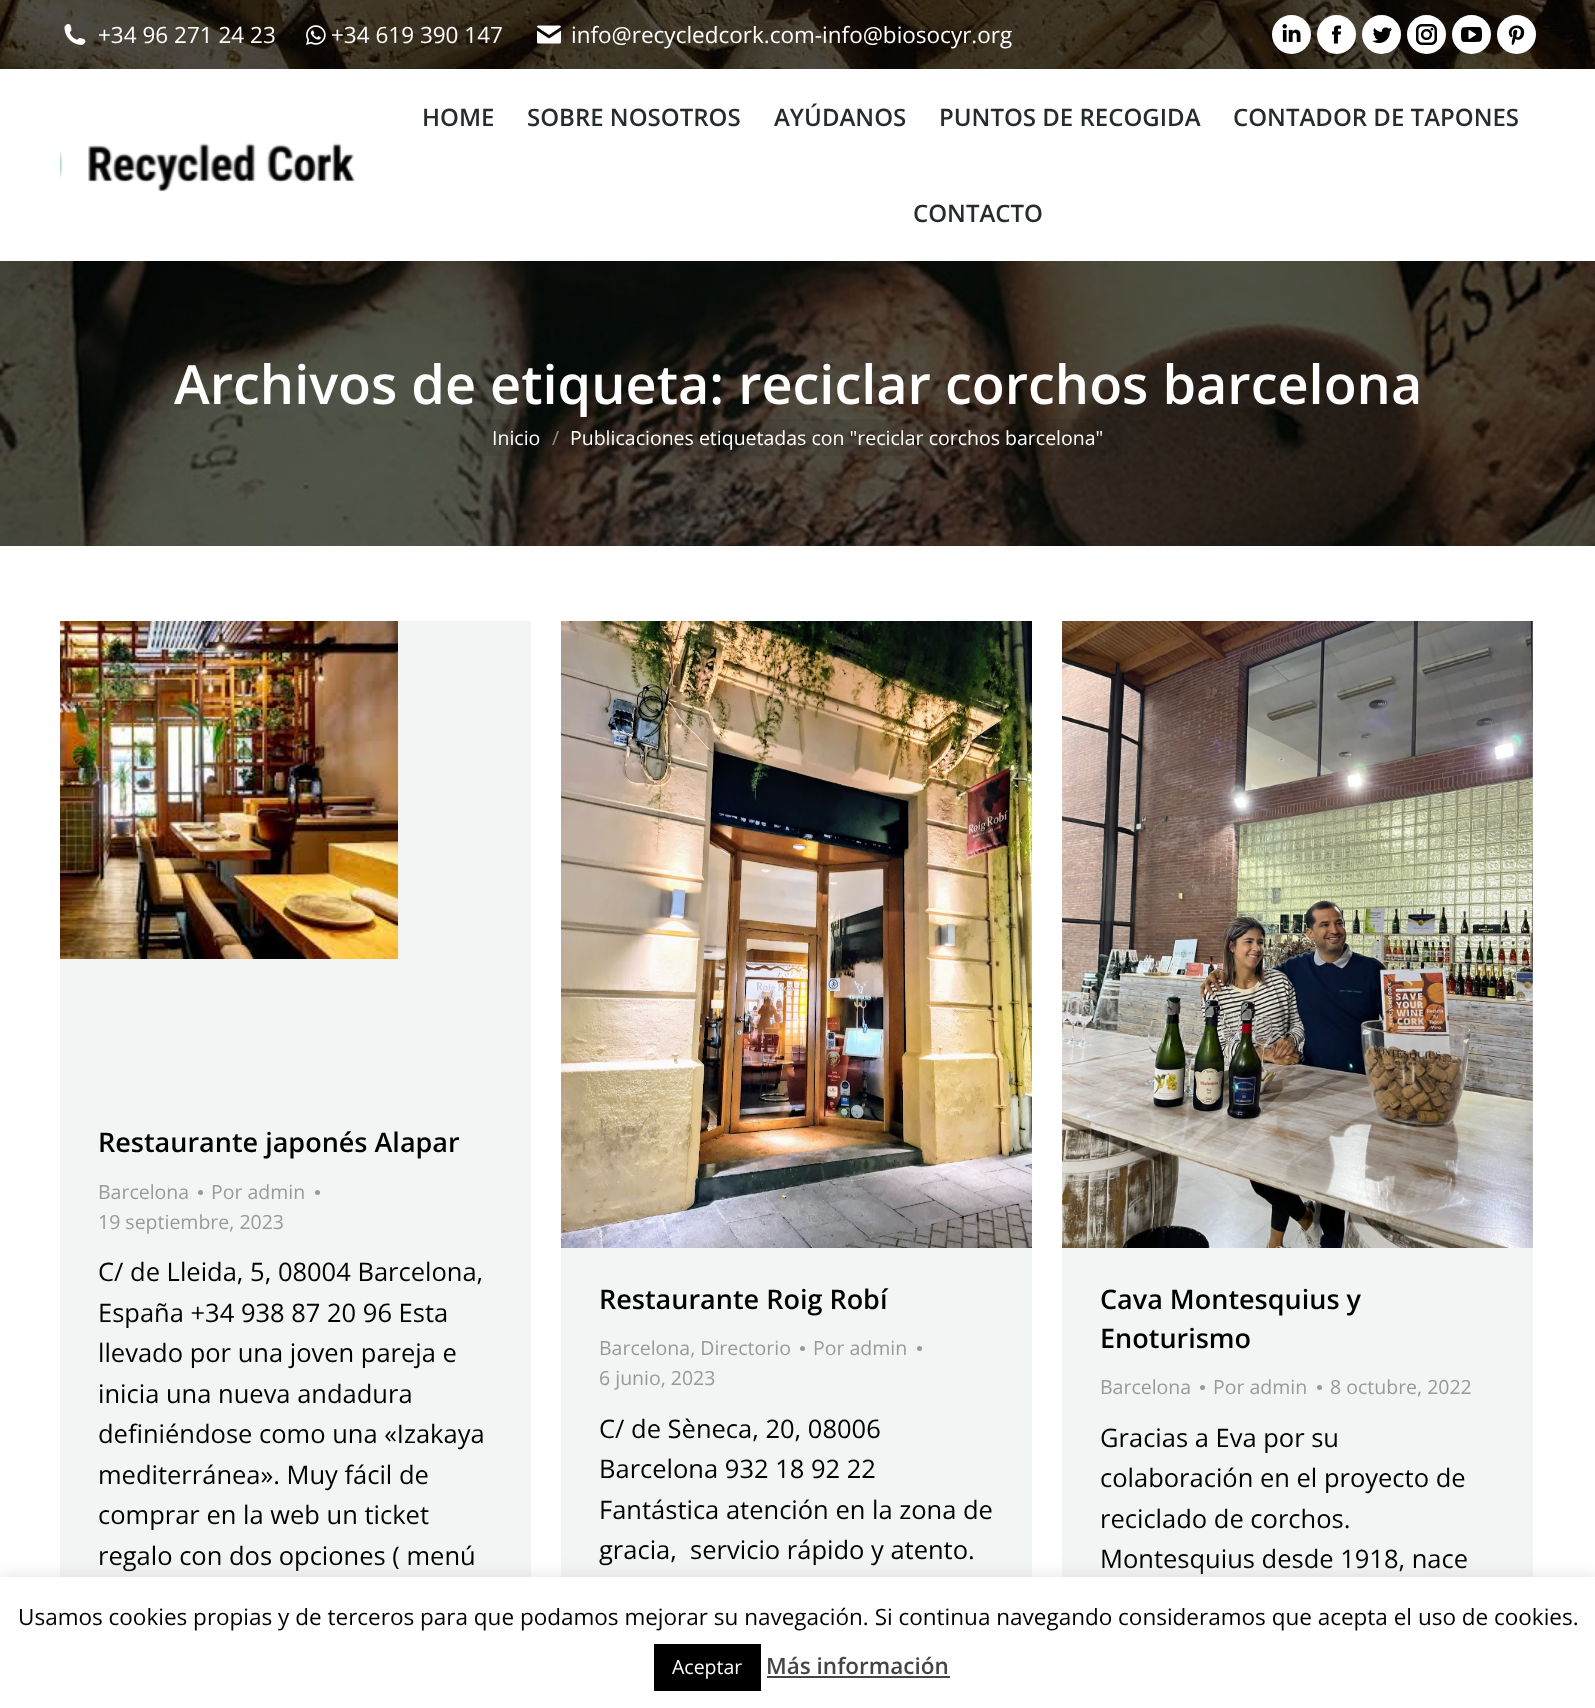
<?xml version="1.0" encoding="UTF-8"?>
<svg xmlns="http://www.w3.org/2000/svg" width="1595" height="1708">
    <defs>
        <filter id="blur1" x="-50%" y="-200%" width="200%" height="500%"><feGaussianBlur stdDeviation="7.5"/></filter>
    </defs>
    <rect width="100%" height="100%" fill="#FFFFFF"/>
    <image x="0" y="0" width="1595" height="69" href="img_01.png"/>
    <image x="64" y="24" width="22" height="21" href="img_02.png"/>
    <text x="98" y="43" font-family="Open Sans" font-size="22.5" fill="#FFFFFF">+34 96 271 24 23</text>
    <image x="306" y="25" width="20" height="20" href="img_03.png"/>
    <text x="331" y="43" font-family="Open Sans" font-size="22.5" fill="#FFFFFF">+34 619 390 147</text>
    <image x="537" y="25" width="24" height="19" href="img_04.png"/>
    <text x="571" y="43" font-family="Open Sans" font-size="22.5" fill="#FFFFFF">info@recycledcork.com-info@biosocyr.org</text>
    <circle cx="1291.5" cy="34.5" r="19.5" fill="#FFFFFF"/>
    <image x="1282" y="24" width="19" height="18" href="img_05.png"/>
    <circle cx="1336.5" cy="34.5" r="19.5" fill="#FFFFFF"/>
    <image x="1331" y="25" width="11" height="19" href="img_06.png"/>
    <circle cx="1381.5" cy="34.5" r="19.5" fill="#FFFFFF"/>
    <image x="1372" y="27" width="20" height="17" href="img_07.png"/>
    <circle cx="1426.5" cy="34.5" r="19.5" fill="#FFFFFF"/>
    <image x="1416" y="24" width="21" height="21" href="img_08.png"/>
    <circle cx="1471.5" cy="34.5" r="19.5" fill="#FFFFFF"/>
    <image x="1461" y="27" width="21" height="15" href="img_09.png"/>
    <circle cx="1516.5" cy="34.5" r="19.5" fill="#FFFFFF"/>
    <image x="1508" y="25" width="17" height="20" href="img_10.png"/>
    <image x="60" y="143" width="295" height="49" href="img_11.png"/>
    <text x="422" y="126" font-family="Open Sans" font-size="24" font-weight="600" fill="#262B2E">HOME</text>
    <text x="527" y="126" font-family="Open Sans" font-size="24" font-weight="600" fill="#262B2E">SOBRE NOSOTROS</text>
    <text x="774" y="126" font-family="Open Sans" font-size="24" font-weight="600" fill="#262B2E">AYÚDANOS</text>
    <text x="939" y="126" font-family="Open Sans" font-size="24" font-weight="600" fill="#262B2E">PUNTOS DE RECOGIDA</text>
    <text x="1233" y="126" font-family="Open Sans" font-size="24" font-weight="600" fill="#262B2E">CONTADOR DE TAPONES</text>
    <text x="913" y="222" font-family="Open Sans" font-size="24" font-weight="600" fill="#262B2E">CONTACTO</text>
    <image x="0" y="261" width="1595" height="285" href="img_12.png"/>
    <text x="174" y="404" font-family="Open Sans" font-size="54" font-weight="600" fill="#FFFFFF">Archivos de etiqueta: reciclar corchos barcelona</text>
    <rect x="474" y="419" width="648" height="37" rx="5" fill="#0F1213" fill-opacity="0.1"/>
    <text x="492" y="445" font-family="Open Sans" font-size="19.5" fill="#FFFFFF">Inicio</text>
    <text x="552" y="445" font-family="Open Sans" font-size="19.5" fill="#938F8B">/</text>
    <text x="570" y="445" font-family="Open Sans" font-size="19.5" fill="#FFFFFF">Publicaciones etiquetadas con "reciclar corchos barcelona"</text>
    <rect x="60" y="621" width="471" height="956" fill="#F3F4F4"/>
    <image x="60" y="621" width="338" height="338" href="img_13.png"/>
    <text x="98" y="1152" font-family="Open Sans" font-size="27" font-weight="600" fill="#000000">Restaurante japonés Alapar</text>
    <text x="98" y="1199" font-family="Open Sans" font-size="19.5" fill="#999999">Barcelona</text>
    <circle cx="200.5" cy="1192.5" r="2.5" fill="#999999"/>
    <text x="211" y="1199" font-family="Open Sans" font-size="19.5" fill="#999999">Por admin</text>
    <circle cx="317.5" cy="1192.5" r="2.5" fill="#999999"/>
    <text x="98" y="1229" font-family="Open Sans" font-size="19.5" fill="#999999">19 septiembre, 2023</text>
    <text font-family="Open Sans" font-size="25.5" fill="#000000">
        <tspan x="98" y="1281">C/ de Lleida, 5, 08004 Barcelona,</tspan>
        <tspan x="98" y="1322">España +34 938 87 20 96 Esta</tspan>
        <tspan x="98" y="1362">llevado por una joven pareja e</tspan>
        <tspan x="98" y="1403">inicia una nueva andadura</tspan>
        <tspan x="98" y="1443">definiéndose como una «Izakaya</tspan>
        <tspan x="98" y="1484">mediterránea». Muy fácil de</tspan>
        <tspan x="98" y="1524">comprar en la web un ticket</tspan>
        <tspan x="98" y="1565">regalo con dos opciones ( menú</tspan>
    </text>
    <rect x="561" y="1248" width="471" height="329" fill="#F3F4F4"/>
    <image x="561" y="621" width="471" height="627" href="img_14.png"/>
    <text x="599" y="1309" font-family="Open Sans" font-size="27" font-weight="600" fill="#000000">Restaurante Roig Robí</text>
    <text x="599" y="1355" font-family="Open Sans" font-size="19.5" fill="#999999">Barcelona, Directorio</text>
    <circle cx="802.5" cy="1348.5" r="2.5" fill="#999999"/>
    <text x="813" y="1355" font-family="Open Sans" font-size="19.5" fill="#999999">Por admin</text>
    <circle cx="919.5" cy="1348.5" r="2.5" fill="#999999"/>
    <text x="599" y="1385" font-family="Open Sans" font-size="19.5" fill="#999999">6 junio, 2023</text>
    <text font-family="Open Sans" font-size="25.5" fill="#000000" xml:space="preserve"><tspan x="599" y="1438">C/ de Sèneca, 20, 08006</tspan><tspan x="599" y="1478">Barcelona 932 18 92 22</tspan><tspan x="599" y="1519">Fantástica atención en la zona de</tspan><tspan x="599" y="1559">gracia,  servicio rápido y atento.</tspan></text>
    <rect x="1062" y="621" width="471" height="956" fill="#F3F4F4"/>
    <image x="1062" y="621" width="471" height="627" href="img_15.png"/>
    <text font-family="Open Sans" font-size="27" font-weight="600" fill="#000000">
        <tspan x="1100" y="1309">Cava Montesquius y</tspan>
        <tspan x="1100" y="1348">Enoturismo</tspan>
    </text>
    <text x="1100" y="1394" font-family="Open Sans" font-size="19.5" fill="#999999">Barcelona</text>
    <circle cx="1202.5" cy="1387.5" r="2.5" fill="#999999"/>
    <text x="1213" y="1394" font-family="Open Sans" font-size="19.5" fill="#999999">Por admin</text>
    <circle cx="1319.5" cy="1387.5" r="2.5" fill="#999999"/>
    <text x="1330" y="1394" font-family="Open Sans" font-size="19.5" fill="#999999">8 octubre, 2022</text>
    <text font-family="Open Sans" font-size="25.5" fill="#000000">
        <tspan x="1100" y="1447">Gracias a Eva por su</tspan>
        <tspan x="1100" y="1487">colaboración en el proyecto de</tspan>
        <tspan x="1100" y="1528">reciclado de corchos.</tspan>
        <tspan x="1100" y="1568">Montesquius desde 1918, nace</tspan>
    </text>
    <rect x="0" y="1575" width="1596" height="132" fill="#ACABAB" fill-opacity="0.3" filter="url(#blur1)"/>
    <rect x="0" y="1577" width="1595" height="131" fill="#FFFFFF"/>
    <text x="18" y="1625" font-family="Open Sans" font-size="22.5" fill="#000000">Usamos cookies propias y de terceros para que podamos mejorar su navegación. Si continua navegando consideramos que acepta el uso de cookies.</text>
    <rect x="654" y="1644" width="107" height="47" fill="#000000"/>
    <text x="672" y="1674" font-family="Open Sans" font-size="19.5" fill="#FFFFFF">Aceptar</text>
    <text x="766" y="1674" font-family="Open Sans" font-size="22.5" font-weight="600" fill="#444444">Más información</text>
    <rect x="767" y="1676" width="183" height="2" fill="#444444"/>
</svg>
